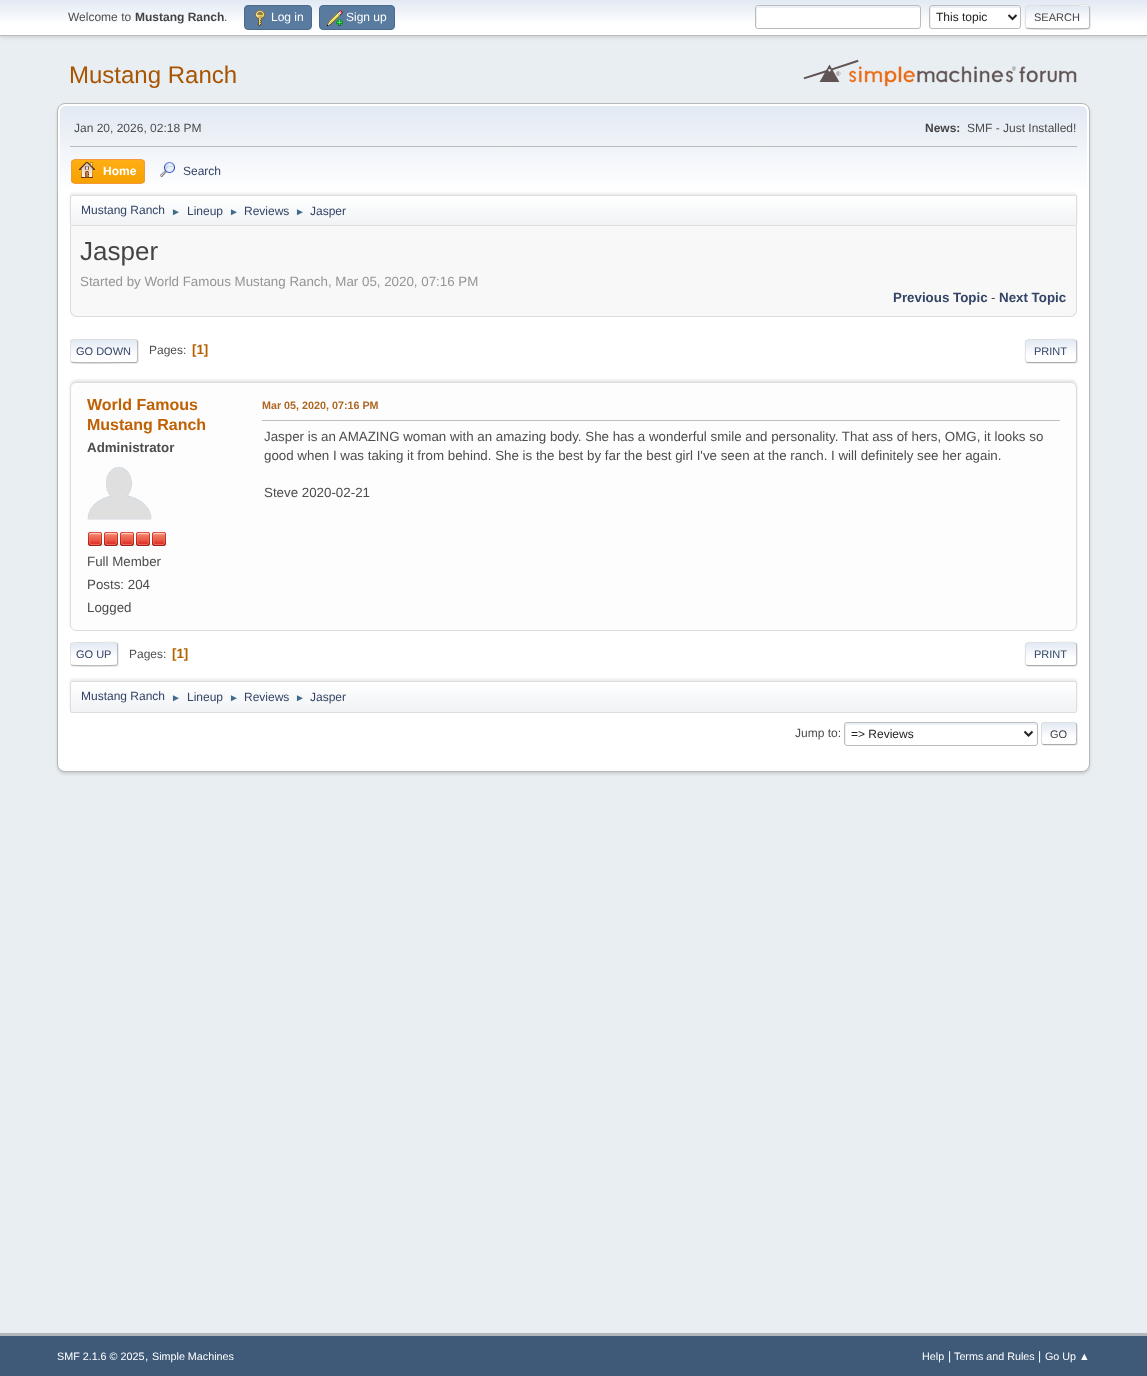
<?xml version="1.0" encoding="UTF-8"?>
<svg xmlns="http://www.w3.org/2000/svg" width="1147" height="1376">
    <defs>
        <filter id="blur1" x="-50%" y="-200%" width="200%" height="500%"><feGaussianBlur stdDeviation="2"/></filter>
        <linearGradient id="g1" gradientUnits="userSpaceOnUse" x1="574" y1="0" x2="574" y2="35"><stop offset="0" stop-color="#E2E9F3"/><stop offset="0.7" stop-color="#FFFFFF"/></linearGradient>
        <filter id="blur2" x="-50%" y="-200%" width="200%" height="500%"><feGaussianBlur stdDeviation="0.5"/></filter>
        <clipPath id="clip1"><rect x="1025" y="5" width="65" height="24" rx="3"/></clipPath>
        <linearGradient id="g2" gradientUnits="userSpaceOnUse" x1="1058" y1="-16" x2="1058" y2="6"><stop offset="0" stop-color="#E2E9F3"/><stop offset="0.7" stop-color="#FFFFFF"/></linearGradient>
        <linearGradient id="g3" gradientUnits="userSpaceOnUse" x1="1058" y1="6" x2="1058" y2="28"><stop offset="0" stop-color="#E2E9F3"/><stop offset="0.7" stop-color="#FFFFFF"/></linearGradient>
        <linearGradient id="g4" gradientUnits="userSpaceOnUse" x1="1058" y1="28" x2="1058" y2="50"><stop offset="0" stop-color="#E2E9F3"/><stop offset="0.7" stop-color="#FFFFFF"/></linearGradient>
        <filter id="blur3" x="-50%" y="-200%" width="200%" height="500%"><feGaussianBlur stdDeviation="1.5"/></filter>
        <linearGradient id="g5" gradientUnits="userSpaceOnUse" x1="574" y1="106" x2="574" y2="228"><stop offset="0" stop-color="#E2E9F3"/><stop offset="0.7" stop-color="#FFFFFF"/></linearGradient>
        <clipPath id="clip2"><rect x="71" y="159" width="74" height="25" rx="4"/></clipPath>
        <linearGradient id="g6" gradientUnits="userSpaceOnUse" x1="108" y1="160" x2="108" y2="183"><stop offset="0" stop-color="#FFAE14"/><stop offset="1" stop-color="#F5A100"/></linearGradient>
        <filter id="blur4" x="-50%" y="-200%" width="200%" height="500%"><feGaussianBlur stdDeviation="1"/></filter>
        <clipPath id="clip3"><rect x="70" y="195" width="1007" height="31" rx="2"/></clipPath>
        <linearGradient id="g7" gradientUnits="userSpaceOnUse" x1="574" y1="196" x2="574" y2="225"><stop offset="0" stop-color="#FFFFFF"/><stop offset="0.95" stop-color="#F1F3F5"/></linearGradient>
        <clipPath id="clip4"><rect x="70" y="339" width="68" height="24" rx="3"/></clipPath>
        <linearGradient id="g8" gradientUnits="userSpaceOnUse" x1="104" y1="340" x2="104" y2="362"><stop offset="0" stop-color="#E2E9F3"/><stop offset="0.7" stop-color="#FFFFFF"/></linearGradient>
        <linearGradient id="g9" gradientUnits="userSpaceOnUse" x1="104" y1="362" x2="104" y2="384"><stop offset="0" stop-color="#E2E9F3"/><stop offset="0.7" stop-color="#FFFFFF"/></linearGradient>
        <clipPath id="clip5"><rect x="70" y="332" width="1007" height="38"/></clipPath>
        <clipPath id="clip6"><path d="M 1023 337 H 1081 V 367 H 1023 Z M 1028 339 H 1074 C 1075.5 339 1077 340.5 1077 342 V 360 C 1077 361.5 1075.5 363 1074 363 H 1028 C 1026.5 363 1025 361.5 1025 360 V 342 C 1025 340.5 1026.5 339 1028 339 Z" clip-rule="evenodd"/></clipPath>
        <clipPath id="clip7"><rect x="1025" y="339" width="52" height="24" rx="3"/></clipPath>
        <linearGradient id="g10" gradientUnits="userSpaceOnUse" x1="1051" y1="340" x2="1051" y2="362"><stop offset="0" stop-color="#E2E9F3"/><stop offset="0.7" stop-color="#FFFFFF"/></linearGradient>
        <clipPath id="clip8"><rect x="70" y="642" width="48" height="24" rx="3"/></clipPath>
        <linearGradient id="g11" gradientUnits="userSpaceOnUse" x1="94" y1="643" x2="94" y2="665"><stop offset="0" stop-color="#E2E9F3"/><stop offset="0.7" stop-color="#FFFFFF"/></linearGradient>
        <clipPath id="clip9"><rect x="70" y="635" width="1007" height="38"/></clipPath>
        <clipPath id="clip10"><path d="M 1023 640 H 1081 V 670 H 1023 Z M 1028 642 H 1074 C 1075.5 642 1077 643.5 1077 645 V 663 C 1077 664.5 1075.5 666 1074 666 H 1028 C 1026.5 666 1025 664.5 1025 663 V 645 C 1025 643.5 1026.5 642 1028 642 Z" clip-rule="evenodd"/></clipPath>
        <clipPath id="clip11"><rect x="1025" y="642" width="52" height="24" rx="3"/></clipPath>
        <linearGradient id="g12" gradientUnits="userSpaceOnUse" x1="1051" y1="643" x2="1051" y2="665"><stop offset="0" stop-color="#E2E9F3"/><stop offset="0.7" stop-color="#FFFFFF"/></linearGradient>
        <clipPath id="clip12"><rect x="70" y="681" width="1007" height="32" rx="2"/></clipPath>
        <linearGradient id="g13" gradientUnits="userSpaceOnUse" x1="574" y1="682" x2="574" y2="712"><stop offset="0" stop-color="#FFFFFF"/><stop offset="0.95" stop-color="#F1F3F5"/></linearGradient>
        <clipPath id="clip13"><rect x="1041" y="722" width="36" height="23" rx="3"/></clipPath>
        <linearGradient id="g14" gradientUnits="userSpaceOnUse" x1="1059" y1="723" x2="1059" y2="744"><stop offset="0" stop-color="#E2E9F3"/><stop offset="0.7" stop-color="#FFFFFF"/></linearGradient>
    </defs>
    <rect width="100%" height="100%" fill="#E9EEF2"/>
    <rect x="0" y="1" width="1147" height="36" fill="#000000" fill-opacity="0.16" filter="url(#blur1)"/>
    <rect x="0" y="0" width="1147" height="35" fill="url(#g1)"/>
    <rect x="0" y="35" width="1147" height="1" fill="#BBBBBB"/>
    <text x="68" y="21" font-family="Liberation Sans" font-size="12" fill="#4D4D4D">Welcome to</text>
    <text x="135" y="21" font-family="Liberation Sans" font-size="12" font-weight="700" fill="#444444">Mustang Ranch</text>
    <text x="224" y="21" font-family="Liberation Sans" font-size="12" fill="#4D4D4D">.</text>
    <rect x="244.5" y="5.5" width="67" height="24" rx="3.5" fill="#597B9F" stroke="#4A6B8C"/>
    <image x="255" y="10" width="10" height="16" href="img_01.png"/>
    <text x="271" y="21" font-family="Liberation Sans" font-size="12" fill="#FFFFFF">Log in</text>
    <rect x="319.5" y="5.5" width="75" height="24" rx="3.5" fill="#597B9F" stroke="#4A6B8C"/>
    <image x="327" y="10" width="16" height="16" href="img_02.png"/>
    <text x="346" y="21" font-family="Liberation Sans" font-size="12" fill="#FFFFFF">Sign up</text>
    <rect x="755" y="5" width="166" height="24" rx="3" fill="#FFFFFF"/>
    <path d="M 759 8 H 920 V 7 L 918 6 H 758 C 757 6 756 7 756 8 C 756 11 755 27 757 28 V 10 C 757 9 758 8 759 8 Z" fill="#ECF1F8"/>
    <rect x="755.5" y="5.5" width="165" height="23" rx="2.5" fill="none" stroke="#BBBBBB"/>
    <rect x="929" y="5" width="92" height="24" rx="3" fill="#FFFFFF"/>
    <path d="M 933 8 H 1020 C 1020 3 1008 6 1004 6 H 946 C 928 6 930 2 930 17 C 930 19 929 27 931 28 V 10 C 931 9 932 8 933 8 Z" fill="#ECF1F8"/>
    <rect x="929.5" y="5.5" width="91" height="23" rx="2.5" fill="none" stroke="#BBBBBB"/>
    <path d="M 1008.5 15 L 1012.5 19 L 1016.5 15" fill="none" stroke="#222222" stroke-width="2"/>
    <text x="936" y="21" font-family="Liberation Sans" font-size="12" fill="#222222">This topic</text>
    <rect x="1026" y="6" width="65" height="24" rx="3" fill="#DDDDDD" fill-opacity="0.57" filter="url(#blur2)"/>
    <g clip-path="url(#clip1)">
        <rect x="1025" y="5" width="65" height="1" fill="url(#g2)"/>
        <rect x="1025" y="6" width="65" height="22" fill="url(#g3)"/>
        <rect x="1025" y="28" width="65" height="1" fill="url(#g4)"/>
    </g>
    <path d="M 1089 6 C 1089 6.5 1089.5 7.5 1089.5 8 V 26 C 1089.5 26.5 1089 27.5 1089 28" fill="none" stroke="#BBBBBB"/>
    <path d="M 1089 28 L 1087 28.5 C 1082 29 1027.5 29 1026.5 28 H 1026" fill="none" stroke="#AAAAAA"/>
    <path d="M 1026 28 C 1024.5 26 1025.5 19 1025.5 17 C 1025.5 3.5 1023.5 5.5 1038 5.5 H 1077 C 1081 5.5 1086 3.5 1089 6" fill="none" stroke="#DDDDDD"/>
    <text x="1034" y="21" font-family="Liberation Sans" font-size="11" fill="#444444">SEARCH</text>
    <text x="69" y="83" font-family="Liberation Sans" font-size="24" fill="#A85400">Mustang Ranch</text>
    <image x="803" y="59" width="274" height="28" href="img_03.png"/>
    <rect x="57" y="105" width="1033" height="669" rx="8" fill="#000000" fill-opacity="0.14" filter="url(#blur3)"/>
    <rect x="57.5" y="103.5" width="1032" height="668" rx="7.5" fill="#FFFFFF" stroke="#B8B8B8"/>
    <path d="M 66 106 H 1081 C 1084.5 106 1087 108.5 1087 112 V 228 H 60 V 112 C 60 108.5 62.5 106 66 106 Z" fill="url(#g5)"/>
    <rect x="70" y="146" width="1007" height="1" fill="#BBBBBB"/>
    <text x="74" y="132" font-family="Liberation Sans" font-size="12" fill="#4D4D4D">Jan 20, 2026, 02:18 PM</text>
    <text x="925" y="132" font-family="Liberation Sans" font-size="12" font-weight="700" fill="#444444">News:</text>
    <text x="967" y="132" font-family="Liberation Sans" font-size="12" fill="#4D4D4D">SMF - Just Installed!</text>
    <g clip-path="url(#clip2)">
        <rect x="71" y="160" width="74" height="23" fill="url(#g6)"/>
    </g>
    <rect x="71.5" y="159.5" width="73" height="24" rx="3.5" fill="none" stroke="#F49A3A"/>
    <image x="79" y="162" width="16" height="16" href="img_04.png"/>
    <text x="103" y="175" font-family="Liberation Sans" font-size="12" font-weight="700" fill="#FFFFFF">Home</text>
    <image x="160" y="162" width="15" height="15" href="img_05.png"/>
    <text x="183" y="175" font-family="Liberation Sans" font-size="12" fill="#334466">Search</text>
    <rect x="70" y="193" width="1007" height="31" rx="2" fill="#000000" fill-opacity="0.08" filter="url(#blur4)"/>
    <g clip-path="url(#clip3)">
        <rect x="70" y="196" width="1007" height="29" fill="url(#g7)"/>
    </g>
    <rect x="70.5" y="195.5" width="1006" height="30" rx="1.5" fill="none" stroke="#DDDDDD"/>
    <text x="81" y="214" font-family="Liberation Sans" font-size="12" fill="#334466">Mustang Ranch</text>
    <text x="171" y="215" font-family="Liberation Sans" font-size="10" fill="#3F6B8C">►</text>
    <text x="187" y="215" font-family="Liberation Sans" font-size="12" fill="#334466">Lineup</text>
    <text x="229" y="215" font-family="Liberation Sans" font-size="10" fill="#3F6B8C">►</text>
    <text x="244" y="215" font-family="Liberation Sans" font-size="12" fill="#334466">Reviews</text>
    <text x="295" y="215" font-family="Liberation Sans" font-size="10" fill="#3F6B8C">►</text>
    <text x="310" y="215" font-family="Liberation Sans" font-size="12" fill="#334466">Jasper</text>
    <path d="M 70 226 H 1077 V 310 C 1077 314 1074 317 1070 317 H 77 C 73 317 70 314 70 310 Z" fill="#F8F8F8"/>
    <path d="M 70 226 H 1077 V 310 C 1077 314 1074 317 1070 317 H 77 C 73 317 70 314 70 310 Z M 71 226 H 1076 V 310 C 1076 313 1073 316 1070 316 H 77 C 74 316 71 313 71 310 Z" fill="#DDDDDD" fill-rule="evenodd"/>
    <text x="80" y="260" font-family="Liberation Sans" font-size="26" fill="#444444">Jasper</text>
    <text x="80" y="286" font-family="Liberation Sans" font-size="13.33" fill="#959595">Started by World Famous Mustang Ranch, Mar 05, 2020, 07:16 PM</text>
    <text x="893" y="302" font-family="Liberation Sans" font-size="13.33" font-weight="700" fill="#334466">Previous Topic</text>
    <text x="991" y="302" font-family="Liberation Sans" font-size="13.33" fill="#4D4D4D">-</text>
    <text x="999" y="302" font-family="Liberation Sans" font-size="13.33" font-weight="700" fill="#334466">Next Topic</text>
    <rect x="71" y="340" width="68" height="24" rx="3" fill="#DDDDDD" fill-opacity="0.57" filter="url(#blur2)"/>
    <g clip-path="url(#clip4)">
        <rect x="70" y="340" width="68" height="22" fill="url(#g8)"/>
        <rect x="70" y="362" width="68" height="1" fill="url(#g9)"/>
    </g>
    <path d="M 137 340 C 137 340.5 137.5 341.5 137.5 342 V 360 C 137.5 360.5 137 361.5 137 362" fill="none" stroke="#BBBBBB"/>
    <path d="M 137 362 L 135 362.5 H 124.5 C 118.5 362.5 73.5 363.5 71.5 362 H 71" fill="none" stroke="#AAAAAA"/>
    <g clip-path="url(#clip5)">
        <path d="M 71 362 C 69.5 360 70.5 356 70.5 354 C 70.5 337.5 67 339.5 83.5 339.5 H 135 L 137 340" fill="none" stroke="#DDDDDD"/>
    </g>
    <text x="76" y="355" font-family="Liberation Sans" font-size="11" fill="#334466">GO DOWN</text>
    <text x="149" y="354" font-family="Liberation Sans" font-size="12" fill="#4D4D4D">Pages:</text>
    <text x="192" y="354" font-family="Liberation Sans" font-size="13.33" font-weight="700" fill="#B46100">[1]</text>
    <g clip-path="url(#clip6)">
        <rect x="1026" y="340" width="52" height="24" rx="3" fill="#DDDDDD" fill-opacity="0.57" filter="url(#blur2)"/>
    </g>
    <rect x="1025" y="339" width="52" height="24" rx="3" fill="#FFFFFF"/>
    <g clip-path="url(#clip7)">
        <rect x="1025" y="340" width="52" height="22" fill="url(#g10)"/>
    </g>
    <path d="M 1076 340 C 1076 340.5 1076.5 341.5 1076.5 342 V 360 C 1076.5 360.5 1076 361.5 1076 362" fill="none" stroke="#BBBBBB"/>
    <path d="M 1076 362 L 1074 362.5 H 1028 L 1026 362" fill="none" stroke="#AAAAAA"/>
    <path d="M 1026 362 C 1024.5 360 1025.5 353 1025.5 351 C 1025.5 338.5 1023.5 339.5 1035.5 339.5 H 1051 C 1054.5 339.5 1073.5 338.5 1075.5 340 H 1076" fill="none" stroke="#DDDDDD"/>
    <text x="1034" y="355" font-family="Liberation Sans" font-size="11" fill="#334466">PRINT</text>
    <rect x="70" y="380" width="1007" height="249" rx="6" fill="#000000" fill-opacity="0.1" filter="url(#blur4)"/>
    <rect x="70.5" y="382.5" width="1006" height="248" rx="5.5" fill="#FDFDFD" stroke="#DDDDDD"/>
    <text font-family="Liberation Sans" font-size="16" font-weight="700" fill="#C06002">
        <tspan x="87" y="410">World Famous</tspan>
        <tspan x="87" y="430">Mustang Ranch</tspan>
    </text>
    <text x="87" y="452" font-family="Liberation Sans" font-size="13.33" font-weight="700" fill="#4D4D4D">Administrator</text>
    <image x="87" y="467" width="65" height="53" href="img_06.png"/>
    <image x="88" y="532" width="14" height="14" href="img_07.png"/>
    <image x="104" y="532" width="14" height="14" href="img_07.png"/>
    <image x="120" y="532" width="14" height="14" href="img_07.png"/>
    <image x="136" y="532" width="14" height="14" href="img_07.png"/>
    <image x="152" y="532" width="14" height="14" href="img_07.png"/>
    <text font-family="Liberation Sans" font-size="13.33" fill="#4D4D4D">
        <tspan x="87" y="566">Full Member</tspan>
        <tspan x="87" y="589">Posts: 204</tspan>
        <tspan x="87" y="612">Logged</tspan>
    </text>
    <text x="262" y="409" font-family="Liberation Sans" font-size="10.75" font-weight="700" fill="#AD6825">Mar 05, 2020, 07:16 PM</text>
    <rect x="262" y="420" width="798" height="1" fill="#BFBFBF"/>
    <text font-family="Liberation Sans" font-size="13.33" fill="#4D4D4D">
        <tspan x="264" y="441">Jasper is an AMAZING woman with an amazing body. She has a wonderful smile and personality. That ass of hers, OMG, it looks so</tspan>
        <tspan x="264" y="460">good when I was taking it from behind. She is the best by far the best girl I've seen at the ranch. I will definitely see her again.</tspan>
    </text>
    <text x="264" y="497" font-family="Liberation Sans" font-size="13.33" fill="#4D4D4D">Steve 2020-02-21</text>
    <rect x="71" y="643" width="48" height="24" rx="3" fill="#DDDDDD" fill-opacity="0.57" filter="url(#blur2)"/>
    <rect x="70" y="642" width="48" height="24" rx="3" fill="#FFFFFF"/>
    <g clip-path="url(#clip8)">
        <rect x="70" y="643" width="48" height="22" fill="url(#g11)"/>
    </g>
    <path d="M 117 643 C 117 643.5 117.5 644.5 117.5 645 V 663 C 117.5 663.5 117 664.5 117 665" fill="none" stroke="#BBBBBB"/>
    <path d="M 117 665 C 115.5 666 72.5 666 71 665" fill="none" stroke="#AAAAAA"/>
    <g clip-path="url(#clip9)">
        <path d="M 71 665 C 69.5 663 70.5 656 70.5 654 C 70.5 642 68 642.5 80 642.5 H 101 C 103.5 642.5 115 641.5 117 643" fill="none" stroke="#DDDDDD"/>
    </g>
    <text x="76" y="658" font-family="Liberation Sans" font-size="11" fill="#334466">GO UP</text>
    <text x="129" y="658" font-family="Liberation Sans" font-size="12" fill="#4D4D4D">Pages:</text>
    <text x="172" y="658" font-family="Liberation Sans" font-size="13.33" font-weight="700" fill="#B46100">[1]</text>
    <g clip-path="url(#clip10)">
        <rect x="1026" y="643" width="52" height="24" rx="3" fill="#DDDDDD" fill-opacity="0.57" filter="url(#blur2)"/>
    </g>
    <rect x="1025" y="642" width="52" height="24" rx="3" fill="#FFFFFF"/>
    <g clip-path="url(#clip11)">
        <rect x="1025" y="643" width="52" height="22" fill="url(#g12)"/>
    </g>
    <path d="M 1076 643 C 1076 643.5 1076.5 644.5 1076.5 645 V 663 C 1076.5 663.5 1076 664.5 1076 665" fill="none" stroke="#BBBBBB"/>
    <path d="M 1076 665 L 1074 665.5 H 1028 L 1026 665" fill="none" stroke="#AAAAAA"/>
    <path d="M 1026 665 C 1024.5 663 1025.5 656 1025.5 654 C 1025.5 641.5 1023.5 642.5 1035.5 642.5 H 1051 C 1054.5 642.5 1073.5 641.5 1075.5 643 H 1076" fill="none" stroke="#DDDDDD"/>
    <text x="1034" y="658" font-family="Liberation Sans" font-size="11" fill="#334466">PRINT</text>
    <rect x="70" y="679" width="1007" height="32" rx="2" fill="#000000" fill-opacity="0.08" filter="url(#blur4)"/>
    <g clip-path="url(#clip12)">
        <rect x="70" y="682" width="1007" height="30" fill="url(#g13)"/>
    </g>
    <rect x="70.5" y="681.5" width="1006" height="31" rx="1.5" fill="none" stroke="#DDDDDD"/>
    <text x="81" y="700" font-family="Liberation Sans" font-size="12" fill="#334466">Mustang Ranch</text>
    <text x="171" y="701" font-family="Liberation Sans" font-size="10" fill="#3F6B8C">►</text>
    <text x="187" y="701" font-family="Liberation Sans" font-size="12" fill="#334466">Lineup</text>
    <text x="229" y="701" font-family="Liberation Sans" font-size="10" fill="#3F6B8C">►</text>
    <text x="244" y="701" font-family="Liberation Sans" font-size="12" fill="#334466">Reviews</text>
    <text x="295" y="701" font-family="Liberation Sans" font-size="10" fill="#3F6B8C">►</text>
    <text x="310" y="701" font-family="Liberation Sans" font-size="12" fill="#334466">Jasper</text>
    <text x="795" y="737" font-family="Liberation Sans" font-size="12" fill="#4D4D4D">Jump to:</text>
    <path d="M 848 725 H 1037 C 1037 724 1036 723 1035 723 H 847 C 846 723 845 724 845 725 V 743 C 845 744 845 744 846 745 V 727 C 846 726 847 725 848 725 Z" fill="#ECF1F8"/>
    <rect x="844.5" y="722.5" width="193" height="23" rx="2.5" fill="none" stroke="#BBBBBB"/>
    <path d="M 1024.5 731.5 L 1028.5 735.5 L 1032.5 731.5" fill="none" stroke="#222222" stroke-width="2"/>
    <text x="851" y="738" font-family="Liberation Sans" font-size="12" fill="#222222">=&gt; Reviews</text>
    <rect x="1042" y="723" width="36" height="23" rx="3" fill="#DDDDDD" fill-opacity="0.57" filter="url(#blur2)"/>
    <g clip-path="url(#clip13)">
        <rect x="1041" y="723" width="36" height="21" fill="url(#g14)"/>
    </g>
    <path d="M 1076 723 C 1076 723.5 1076.5 724.5 1076.5 725 V 742 C 1076.5 742.5 1076 743.5 1076 744" fill="none" stroke="#BBBBBB"/>
    <path d="M 1076 744 C 1075.5 744 1074.5 744.5 1074 744.5 H 1044 C 1043.5 744.5 1042.5 744 1042 744" fill="none" stroke="#AAAAAA"/>
    <path d="M 1042 744 C 1042 743.5 1041.5 742.5 1041.5 742 V 725 C 1041.5 724.5 1042 723.5 1042 723 C 1042.5 723 1043.5 722.5 1044 722.5 H 1074 C 1074.5 722.5 1075.5 723 1076 723" fill="none" stroke="#DDDDDD"/>
    <text x="1050" y="738" font-family="Liberation Sans" font-size="11" fill="#444444">GO</text>
    <rect x="0" y="1336" width="1147" height="40" fill="#3E5A78"/>
    <rect x="0" y="1333" width="1147" height="3" fill="#B2B6BD"/>
    <text x="57" y="1360" font-family="Liberation Sans" font-size="10.75" fill="#FFFFFF">SMF 2.1.6 © 2025</text>
    <text x="145" y="1360" font-family="Liberation Sans" font-size="12" fill="#FFFFFF">,</text>
    <text x="152" y="1360" font-family="Liberation Sans" font-size="10.75" fill="#FFFFFF">Simple Machines</text>
    <text x="922" y="1360" font-family="Liberation Sans" font-size="10.75" fill="#FFFFFF">Help</text>
    <text x="948" y="1360" font-family="Liberation Sans" font-size="12" fill="#FFFFFF">|</text>
    <text x="954" y="1360" font-family="Liberation Sans" font-size="10.75" fill="#FFFFFF">Terms and Rules</text>
    <text x="1038" y="1360" font-family="Liberation Sans" font-size="12" fill="#FFFFFF">|</text>
    <text x="1045" y="1360" font-family="Liberation Sans" font-size="10.75" fill="#FFFFFF">Go Up ▲</text>
</svg>
